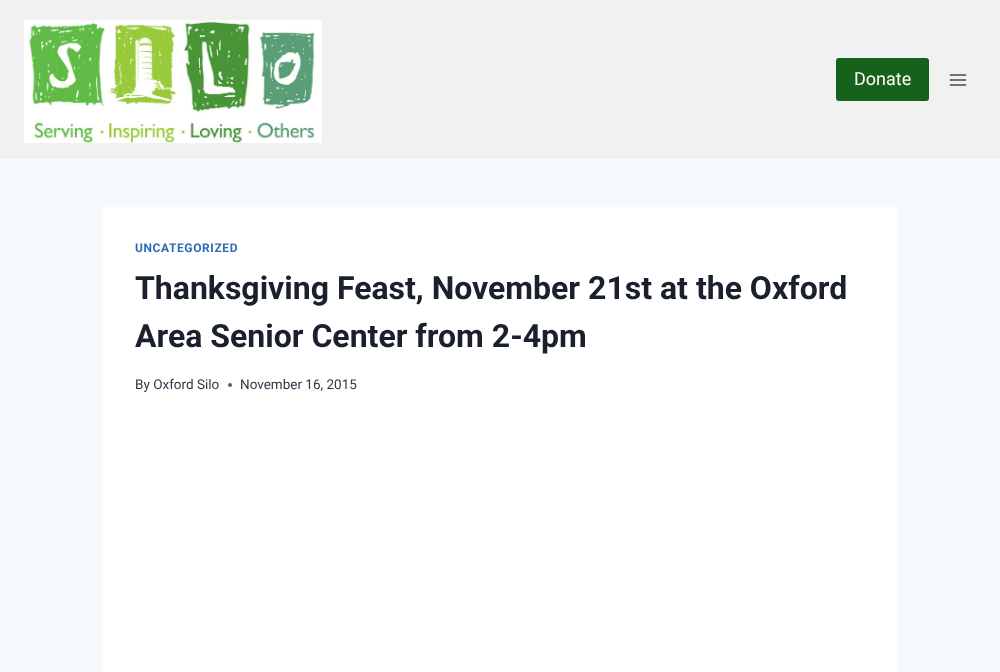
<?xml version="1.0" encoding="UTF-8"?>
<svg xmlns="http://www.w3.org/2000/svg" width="1000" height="672">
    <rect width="100%" height="100%" fill="#F7FAFC"/>
    <rect x="0" y="0" width="1000" height="159" fill="#F2F1F1"/>
    <image x="24" y="20" width="298" height="123" href="img_01.png"/>
    <rect x="836" y="58" width="93" height="43" rx="3" fill="#16621C"/>
    <text x="854" y="85" font-family="Roboto" font-size="18" fill="#FFFFFF">Donate</text>
    <image x="949" y="74" width="18" height="12" href="img_02.png"/>
    <rect x="103" y="207" width="794" height="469" rx="4" fill="#FFFFFF"/>
    <text x="135" y="252" font-family="Roboto" font-size="12" font-weight="700" letter-spacing="0.6" fill="#2B6CB0">UNCATEGORIZED</text>
    <text font-family="Roboto" font-size="32" font-weight="700" fill="#1A202C">
        <tspan x="135" y="299">Thanksgiving Feast, November 21st at the Oxford</tspan>
        <tspan x="135" y="347">Area Senior Center from 2-4pm</tspan>
    </text>
    <text x="135" y="389" font-family="Roboto" font-size="13.5" fill="#2D3748">By Oxford Silo</text>
    <circle cx="230" cy="385" r="2" fill="#575F6D"/>
    <text x="240" y="389" font-family="Roboto" font-size="13.5" fill="#2D3748">November 16, 2015</text>
</svg>
